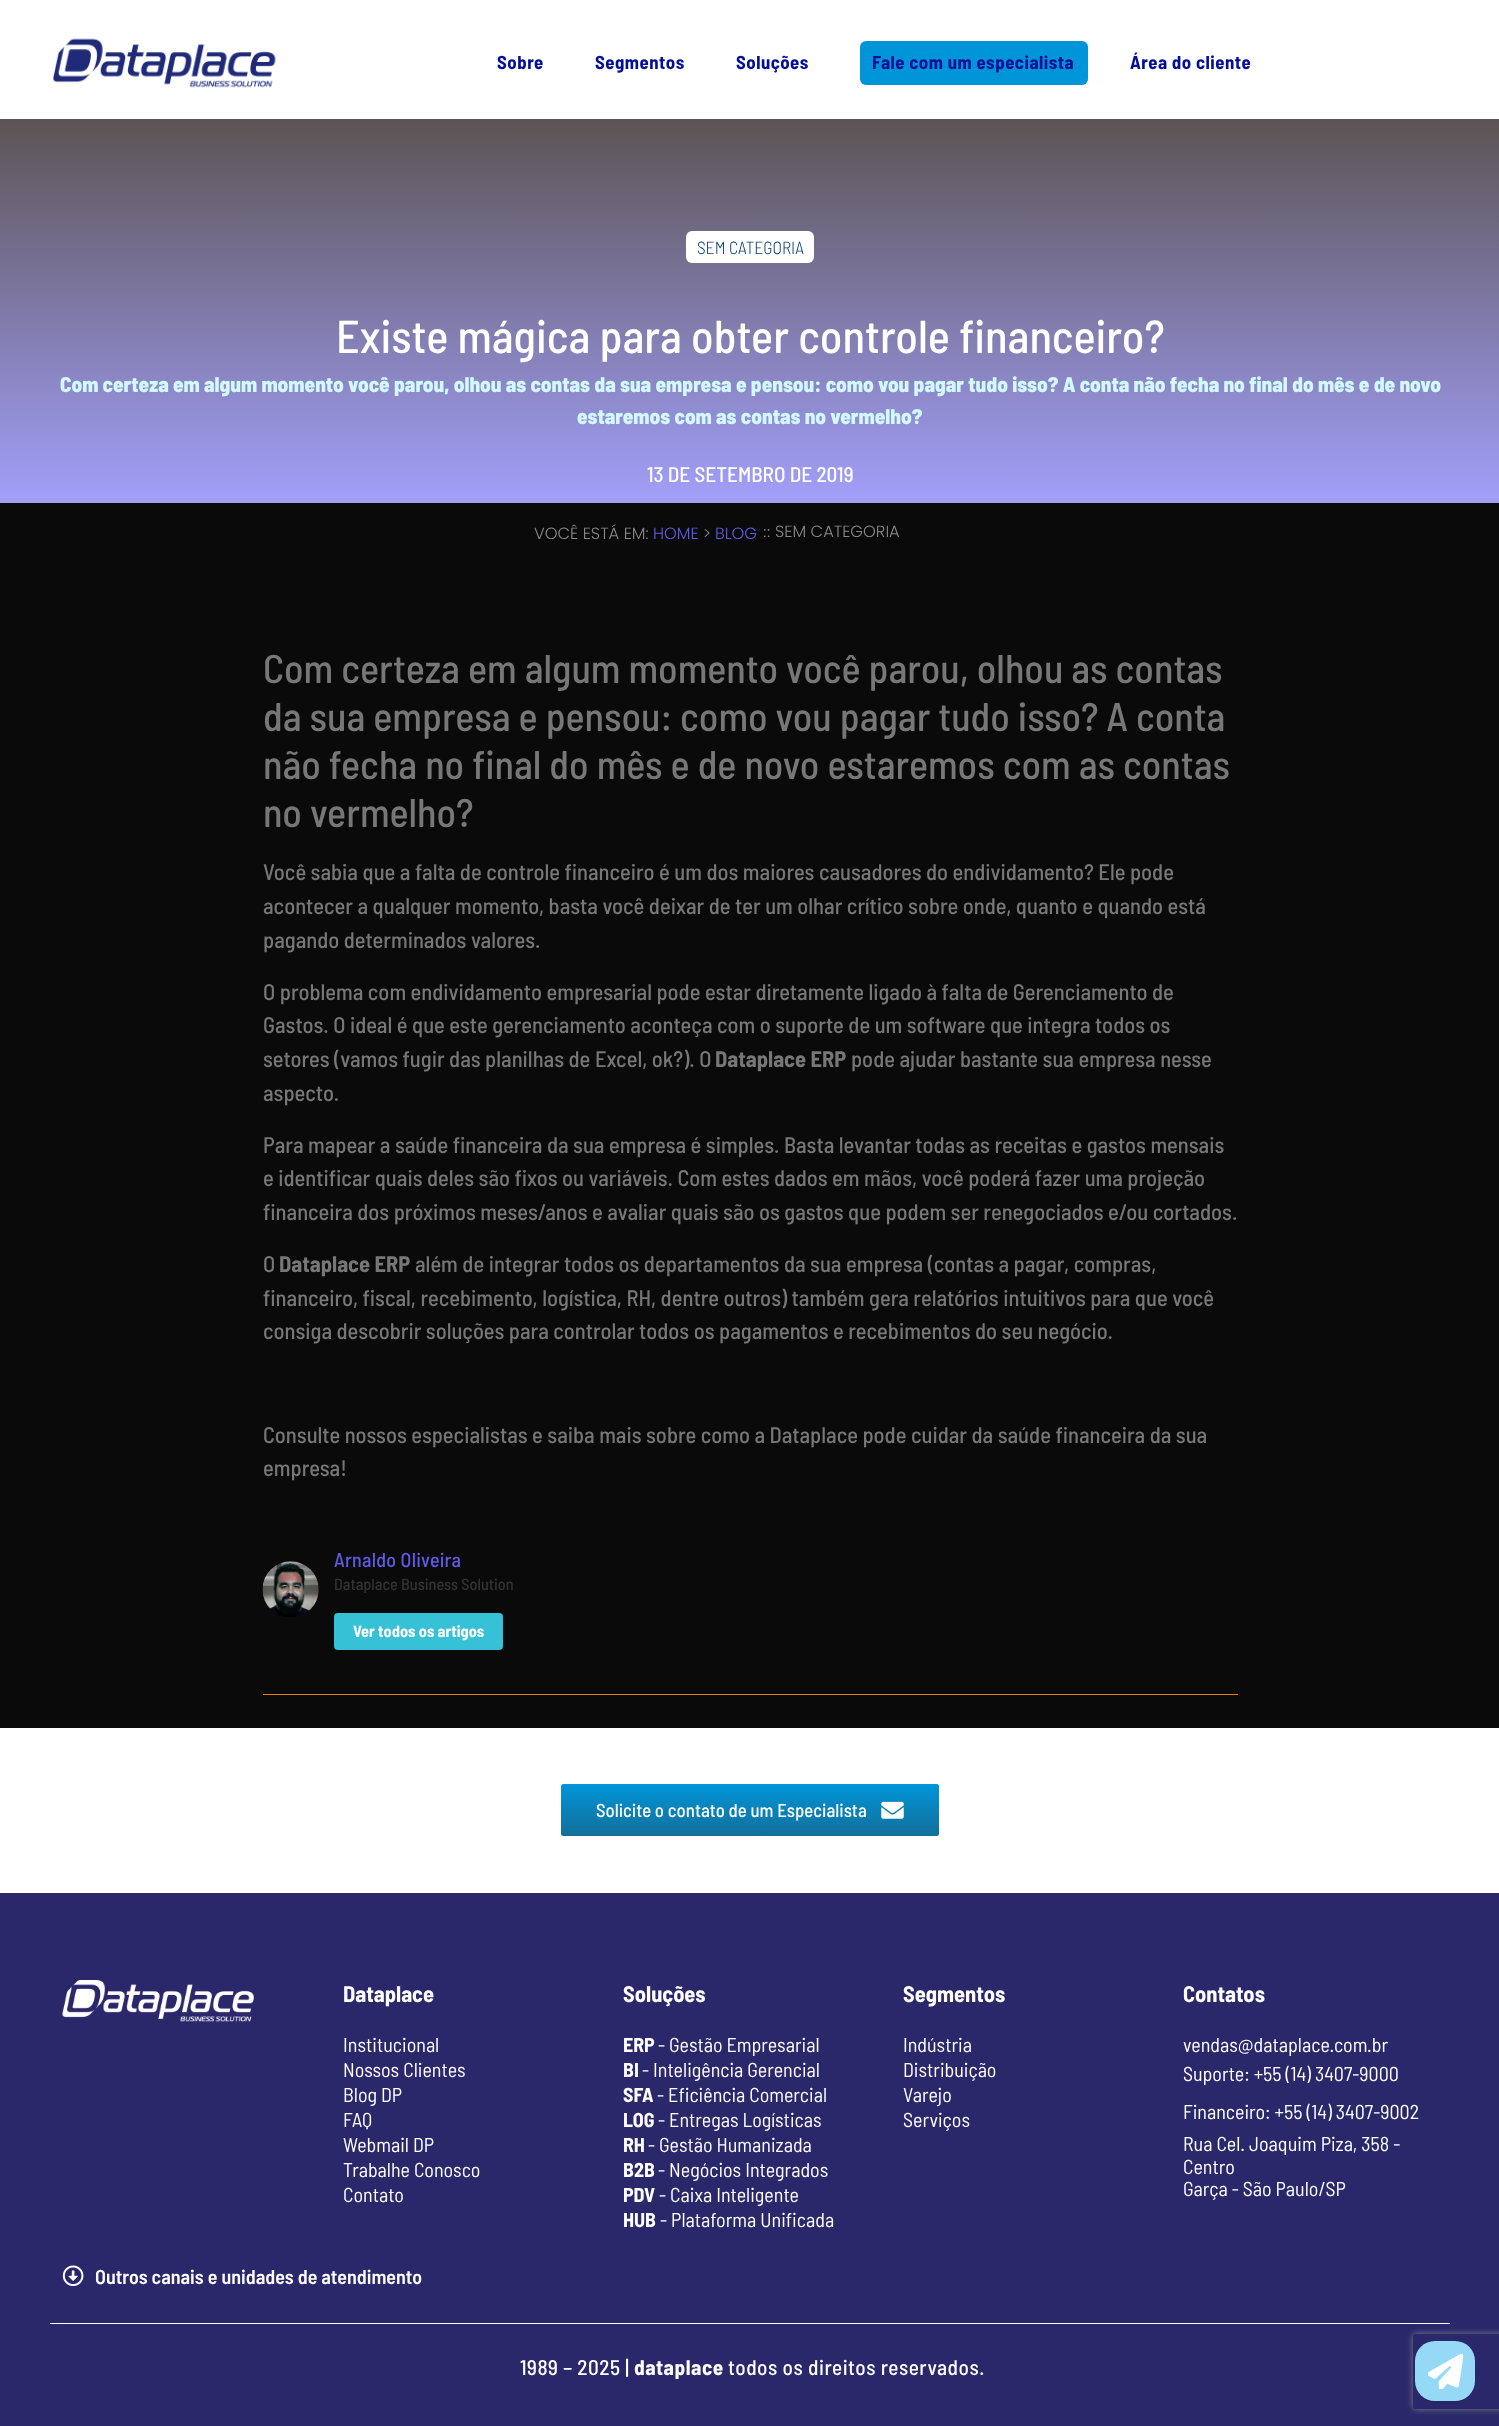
<?xml version="1.0" encoding="UTF-8"?>
<svg xmlns="http://www.w3.org/2000/svg" width="1499" height="2426">
    <defs>
        <linearGradient id="g1" gradientUnits="userSpaceOnUse" x1="750" y1="119" x2="750" y2="503"><stop offset="0" stop-color="#5C5454"/><stop offset="1" stop-color="#A29FFA"/></linearGradient>
        <linearGradient id="g2" gradientUnits="userSpaceOnUse" x1="750" y1="1784" x2="750" y2="1836"><stop offset="0" stop-color="#0095D9"/><stop offset="1" stop-color="#136F99"/></linearGradient>
        <clipPath id="clip1"><path d="M 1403 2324 H 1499 V 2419 H 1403 Z M 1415.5 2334 H 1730.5 C 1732 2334 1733 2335 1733 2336.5 V 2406.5 C 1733 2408 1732 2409 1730.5 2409 H 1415.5 C 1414 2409 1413 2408 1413 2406.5 V 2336.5 C 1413 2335 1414 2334 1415.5 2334 Z" clip-rule="evenodd"/></clipPath>
        <filter id="blur1" x="-50%" y="-200%" width="200%" height="500%"><feGaussianBlur stdDeviation="3"/></filter>
        <filter id="blur2" x="-50%" y="-200%" width="200%" height="500%"><feGaussianBlur stdDeviation="2.5"/></filter>
    </defs>
    <rect width="100%" height="100%" fill="#0A0A0A"/>
    <rect x="0" y="0" width="1499" height="119" fill="#FFFFFF"/>
    <image x="53" y="38" width="223" height="50" href="img_01.png"/>
    <text x="497" y="69" font-family="Barlow Semi Condensed" font-size="18.75" font-weight="700" letter-spacing="0.5" fill="#040F98">Sobre</text>
    <text x="595" y="69" font-family="Barlow Semi Condensed" font-size="18.75" font-weight="700" letter-spacing="0.5" fill="#040F98">Segmentos</text>
    <text x="736" y="69" font-family="Barlow Semi Condensed" font-size="18.75" font-weight="700" letter-spacing="0.5" fill="#040F98">Soluções</text>
    <rect x="860" y="41" width="228" height="44" rx="6" fill="#0095D9"/>
    <text x="872" y="69" font-family="Barlow Semi Condensed" font-size="18.75" font-weight="700" letter-spacing="0.5" fill="#040F98">Fale com um especialista</text>
    <text x="1130" y="69" font-family="Barlow Semi Condensed" font-size="18.75" font-weight="700" letter-spacing="0.5" fill="#040F98">Área do cliente</text>
    <rect x="0" y="119" width="1499" height="384" fill="url(#g1)"/>
    <rect x="686" y="231" width="128" height="32" rx="6" fill="#FFFFFF"/>
    <text x="697" y="254" font-family="Barlow Semi Condensed" font-size="17.5" font-weight="300" fill="#083F6D">SEM CATEGORIA</text>
    <text x="336" y="353" font-family="Barlow Semi Condensed" font-size="46.25" font-weight="500" fill="#FFFFFF">Existe mágica para obter controle financeiro?</text>
    <text x="60" y="392" font-family="Barlow Semi Condensed" font-size="21.25" font-weight="800" fill="#D1F9FF">Com certeza em algum momento você parou, olhou as contas da sua empresa e pensou: como vou pagar tudo isso? A conta não fecha no final do mês e de novo</text>
    <text x="577" y="424" font-family="Barlow Semi Condensed" font-size="21.25" font-weight="800" fill="#D1F9FF">estaremos com as contas no vermelho?</text>
    <text x="647" y="482" font-family="Barlow Semi Condensed" font-size="21.25" font-weight="500" fill="#FFFFFF">13 DE SETEMBRO DE 2019</text>
    <text x="534" y="539" font-family="Poppins" font-size="16.25" font-weight="300" fill="#89898D">VOCÊ ESTÁ EM:</text>
    <text x="653" y="539" font-family="Poppins" font-size="16.25" font-weight="300" fill="#605BE5">HOME</text>
    <text x="703" y="539" font-family="Poppins" font-size="16.25" font-weight="300" fill="#89898D">&gt;</text>
    <text x="715" y="539" font-family="Poppins" font-size="16.25" font-weight="300" fill="#605BE5">BLOG</text>
    <text x="763" y="537" font-family="Roboto" font-size="15" fill="#89898D">::</text>
    <text x="775" y="537" font-family="Poppins" font-size="16.25" font-weight="300" fill="#89898D">SEM CATEGORIA</text>
    <text font-family="Barlow Semi Condensed" font-size="40" font-weight="500" fill="#777777">
        <tspan x="263" y="683">Com certeza em algum momento você parou, olhou as contas</tspan>
        <tspan x="263" y="731">da sua empresa e pensou: como vou pagar tudo isso? A conta</tspan>
        <tspan x="263" y="779">não fecha no final do mês e de novo estaremos com as contas</tspan>
        <tspan x="263" y="827">no vermelho?</tspan>
    </text>
    <text font-family="Barlow Semi Condensed" font-size="22.5" font-weight="500" fill="#777777">
        <tspan x="263" y="880">Você sabia que a falta de controle financeiro é um dos maiores causadores do endividamento? Ele pode</tspan>
        <tspan x="263" y="914">acontecer a qualquer momento, basta você deixar de ter um olhar crítico sobre onde, quanto e quando está</tspan>
        <tspan x="263" y="948">pagando determinados valores.</tspan>
    </text>
    <text font-family="Barlow Semi Condensed" font-size="22.5" font-weight="500" fill="#777777">
        <tspan x="263" y="1000">O problema com endividamento empresarial pode estar diretamente ligado à falta de Gerenciamento de</tspan>
        <tspan x="263" y="1033">Gastos. O ideal é que este gerenciamento aconteça com o suporte de um software que integra todos os</tspan>
        <tspan x="263" y="1067">setores (vamos fugir das planilhas de Excel, ok?). O</tspan>
    </text>
    <text x="715" y="1067" font-family="Barlow Semi Condensed" font-size="22.5" font-weight="700" fill="#777777">Dataplace ERP</text>
    <text x="851" y="1067" font-family="Barlow Semi Condensed" font-size="22.5" font-weight="500" fill="#777777">pode ajudar bastante sua empresa nesse</text>
    <text x="263" y="1101" font-family="Barlow Semi Condensed" font-size="22.5" font-weight="500" fill="#777777">aspecto.</text>
    <text font-family="Barlow Semi Condensed" font-size="22.5" font-weight="500" fill="#777777">
        <tspan x="263" y="1153">Para mapear a saúde financeira da sua empresa é simples. Basta levantar todas as receitas e gastos mensais</tspan>
        <tspan x="263" y="1186">e identificar quais deles são fixos ou variáveis. Com estes dados em mãos, você poderá fazer uma projeção</tspan>
        <tspan x="263" y="1220">financeira dos próximos meses/anos e avaliar quais são os gastos que podem ser renegociados e/ou cortados.</tspan>
    </text>
    <text x="263" y="1272" font-family="Barlow Semi Condensed" font-size="22.5" font-weight="500" fill="#777777">O</text>
    <text x="279" y="1272" font-family="Barlow Semi Condensed" font-size="22.5" font-weight="700" fill="#777777">Dataplace ERP</text>
    <text x="415" y="1272" font-family="Barlow Semi Condensed" font-size="22.5" font-weight="500" fill="#777777">além de integrar todos os departamentos da sua empresa (contas a pagar, compras,</text>
    <text font-family="Barlow Semi Condensed" font-size="22.5" font-weight="500" fill="#777777">
        <tspan x="263" y="1306">financeiro, fiscal, recebimento, logística, RH, dentre outros) também gera relatórios intuitivos para que você</tspan>
        <tspan x="263" y="1339">consiga descobrir soluções para controlar todos os pagamentos e recebimentos do seu negócio.</tspan>
    </text>
    <text font-family="Barlow Semi Condensed" font-size="22.5" font-weight="500" fill="#777777">
        <tspan x="263" y="1443">Consulte nossos especialistas e saiba mais sobre como a Dataplace pode cuidar da saúde financeira da sua</tspan>
        <tspan x="263" y="1476">empresa!</tspan>
    </text>
    <image x="262" y="1561" width="57" height="56" href="img_02.png"/>
    <text x="334" y="1567" font-family="Barlow Semi Condensed" font-size="20" font-weight="500" letter-spacing="0.25" fill="#605BE5">Arnaldo Oliveira</text>
    <text x="334" y="1590" font-family="Barlow Semi Condensed" font-size="16.25" font-weight="500" fill="#333333">Dataplace Business Solution</text>
    <rect x="334" y="1613" width="169" height="37" rx="4" fill="#36C1D7"/>
    <text x="353" y="1637" font-family="Barlow Semi Condensed" font-size="16.25" font-weight="700" fill="#FFFFFF">Ver todos os artigos</text>
    <rect x="263" y="1694" width="975" height="1" fill="#EC7F00"/>
    <rect x="0" y="1728" width="1499" height="165" fill="#FFFFFF"/>
    <rect x="561" y="1784" width="378" height="52" rx="2.5" fill="url(#g2)"/>
    <text x="596" y="1817" font-family="Barlow Semi Condensed" font-size="18.75" font-weight="500" fill="#FFFFFF">Solicite o contato de um Especialista</text>
    <image x="881" y="1801" width="23" height="18" href="img_03.png"/>
    <rect x="0" y="1893" width="1499" height="533" fill="#2A276B"/>
    <image x="62" y="1980" width="192" height="42" href="img_04.png"/>
    <text x="343" y="2002" font-family="Barlow Semi Condensed" font-size="22.5" font-weight="700" fill="#FFFFFF">Dataplace</text>
    <text font-family="Barlow Semi Condensed" font-size="20" fill="#FFFFFF">
        <tspan x="343" y="2052">Institucional</tspan>
        <tspan x="343" y="2077">Nossos Clientes</tspan>
        <tspan x="343" y="2102">Blog DP</tspan>
        <tspan x="343" y="2127">FAQ</tspan>
        <tspan x="343" y="2152">Webmail DP</tspan>
        <tspan x="343" y="2177">Trabalhe Conosco</tspan>
        <tspan x="343" y="2202">Contato</tspan>
    </text>
    <text x="623" y="2002" font-family="Barlow Semi Condensed" font-size="22.5" font-weight="700" fill="#FFFFFF">Soluções</text>
    <text x="623" y="2052" font-family="Barlow Semi Condensed" font-size="20" font-weight="700" fill="#FFFFFF">ERP</text>
    <text x="658" y="2052" font-family="Barlow Semi Condensed" font-size="20" fill="#FFFFFF">- Gestão Empresarial</text>
    <text x="623" y="2077" font-family="Barlow Semi Condensed" font-size="20" font-weight="700" fill="#FFFFFF">BI</text>
    <text x="642" y="2077" font-family="Barlow Semi Condensed" font-size="20" fill="#FFFFFF">- Inteligência Gerencial</text>
    <text x="623" y="2102" font-family="Barlow Semi Condensed" font-size="20" font-weight="700" fill="#FFFFFF">SFA</text>
    <text x="657" y="2102" font-family="Barlow Semi Condensed" font-size="20" fill="#FFFFFF">- Eficiência Comercial</text>
    <text x="623" y="2127" font-family="Barlow Semi Condensed" font-size="20" font-weight="700" fill="#FFFFFF">LOG</text>
    <text x="658" y="2127" font-family="Barlow Semi Condensed" font-size="20" fill="#FFFFFF">- Entregas Logísticas</text>
    <text x="623" y="2152" font-family="Barlow Semi Condensed" font-size="20" font-weight="700" fill="#FFFFFF">RH</text>
    <text x="648" y="2152" font-family="Barlow Semi Condensed" font-size="20" fill="#FFFFFF">- Gestão Humanizada</text>
    <text x="623" y="2177" font-family="Barlow Semi Condensed" font-size="20" font-weight="700" fill="#FFFFFF">B2B</text>
    <text x="658" y="2177" font-family="Barlow Semi Condensed" font-size="20" fill="#FFFFFF">- Negócios Integrados</text>
    <text x="623" y="2202" font-family="Barlow Semi Condensed" font-size="20" font-weight="700" fill="#FFFFFF">PDV</text>
    <text x="659" y="2202" font-family="Barlow Semi Condensed" font-size="20" fill="#FFFFFF">- Caixa Inteligente</text>
    <text x="623" y="2227" font-family="Barlow Semi Condensed" font-size="20" font-weight="700" fill="#FFFFFF">HUB</text>
    <text x="660" y="2227" font-family="Barlow Semi Condensed" font-size="20" fill="#FFFFFF">- Plataforma Unificada</text>
    <text x="903" y="2002" font-family="Barlow Semi Condensed" font-size="22.5" font-weight="700" fill="#FFFFFF">Segmentos</text>
    <text font-family="Barlow Semi Condensed" font-size="20" fill="#FFFFFF">
        <tspan x="903" y="2052">Indústria</tspan>
        <tspan x="903" y="2077">Distribuição</tspan>
        <tspan x="903" y="2102">Varejo</tspan>
        <tspan x="903" y="2127">Serviços</tspan>
    </text>
    <text x="1183" y="2002" font-family="Barlow Semi Condensed" font-size="22.5" font-weight="700" fill="#FFFFFF">Contatos</text>
    <text font-family="Barlow Semi Condensed" font-size="20" fill="#FFFFFF">
        <tspan x="1183" y="2052">vendas@dataplace.com.br</tspan>
        <tspan x="1183" y="2081">Suporte: +55 (14) 3407-9000</tspan>
        <tspan x="1183" y="2119">Financeiro: +55 (14) 3407-9002</tspan>
        <tspan x="1183" y="2151">Rua Cel. Joaquim Piza, 358 -</tspan>
        <tspan x="1183" y="2174">Centro</tspan>
        <tspan x="1183" y="2196">Garça - São Paulo/SP</tspan>
    </text>
    <image x="62" y="2265" width="22" height="22" href="img_05.png"/>
    <text x="95" y="2284" font-family="Barlow Semi Condensed" font-size="20" font-weight="600" fill="#FFFFFF">Outros canais e unidades de atendimento</text>
    <rect x="50" y="2323" width="1400" height="1" fill="#FFFFFF"/>
    <text x="520" y="2375" font-family="Barlow Semi Condensed" font-size="21.25" font-weight="500" letter-spacing="0.5" fill="#FFFFFF">1989 – 2025 |</text>
    <text x="634" y="2375" font-family="Barlow Semi Condensed" font-size="21.25" font-weight="700" letter-spacing="0.5" fill="#FFFFFF">dataplace</text>
    <text x="728" y="2375" font-family="Barlow Semi Condensed" font-size="21.25" font-weight="500" letter-spacing="0.5" fill="#FFFFFF">todos os direitos reservados.</text>
    <g clip-path="url(#clip1)">
        <rect x="1413" y="2334" width="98" height="75" rx="2.5" fill="#808080" filter="url(#blur1)"/>
    </g>
    <rect x="1418" y="2346" width="55" height="55" rx="18" fill="#000000" fill-opacity="0.1" filter="url(#blur2)"/>
    <rect x="1415" y="2341" width="60" height="60" rx="20" fill="#95D9F7"/>
    <image x="1428" y="2354" width="35" height="35" href="img_06.png"/>
</svg>
